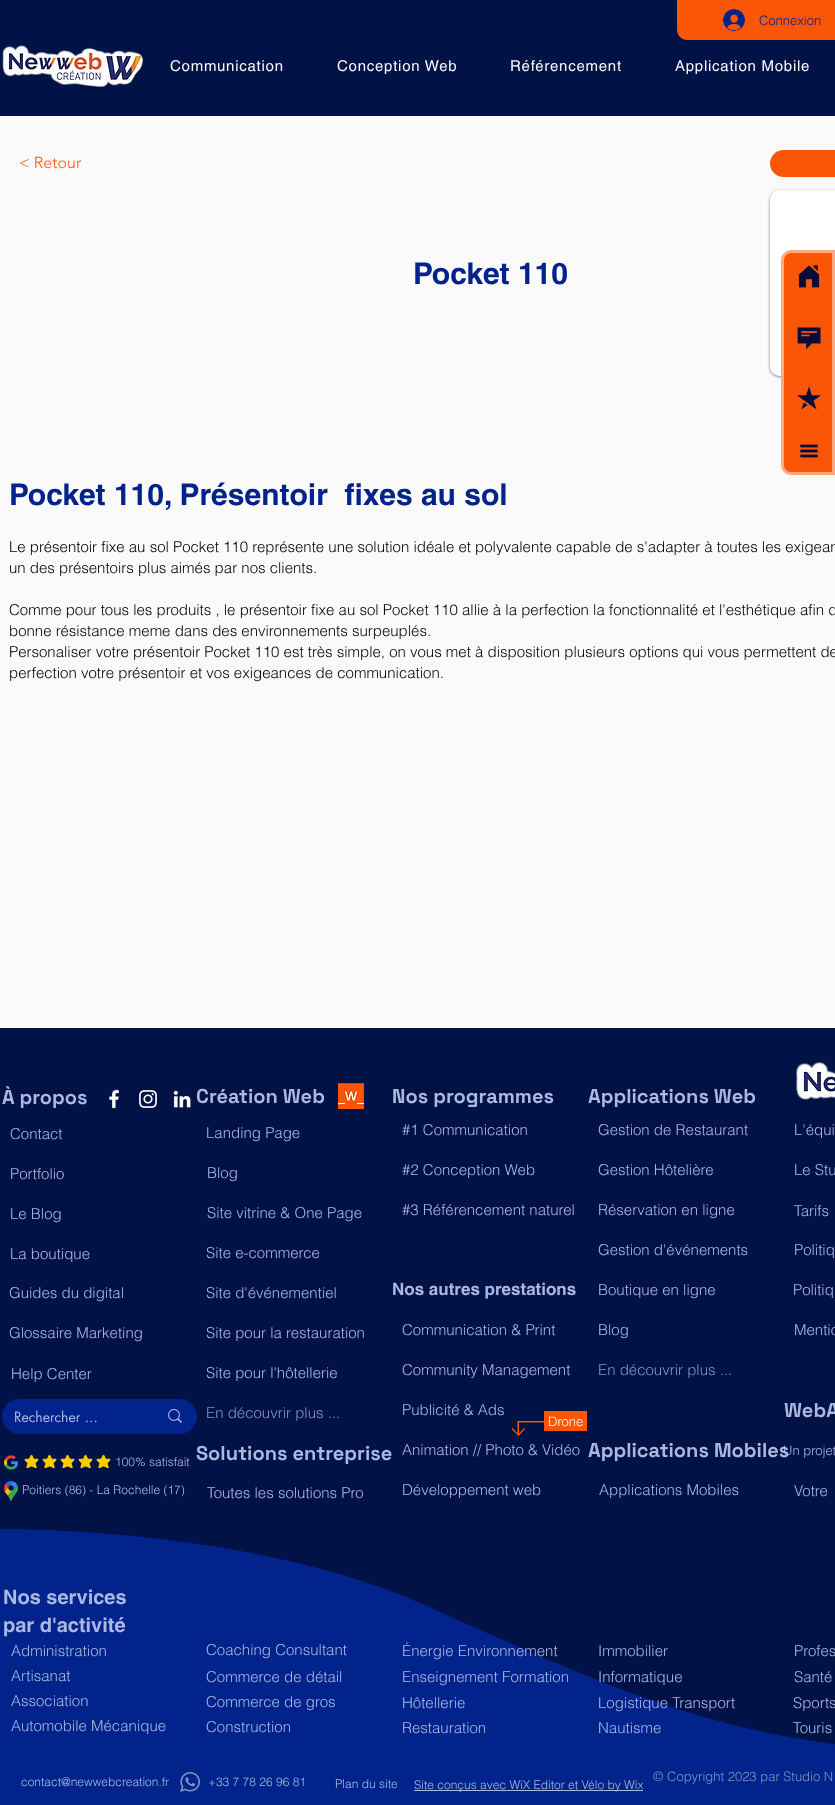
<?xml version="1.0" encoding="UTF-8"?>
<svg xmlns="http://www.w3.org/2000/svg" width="835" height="1805">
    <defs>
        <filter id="blur1" x="-50%" y="-200%" width="200%" height="500%"><feGaussianBlur stdDeviation="1.5"/></filter>
    </defs>
    <rect width="100%" height="100%" fill="#001246"/>
    <path d="M 677 0 H 835 V 40 H 687 C 681.5 40 677 35.5 677 30 Z" fill="#FB5605"/>
    <image x="723" y="9" width="22" height="22" href="img_01.png"/>
    <text x="759" y="25" font-family="helvetica" font-size="13" font-weight="300" fill="#01238B">Connexion</text>
    <rect x="0" y="116" width="835" height="912" fill="#FAFAFA"/>
    <rect x="770" y="191" width="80" height="186" rx="10" fill="#000000" fill-opacity="0.5" filter="url(#blur1)"/>
    <rect x="770" y="190" width="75" height="186" rx="10" fill="#FAFAFA"/>
    <image x="770" y="190" width="65" height="186" href="img_07.png"/>
    <path d="M 791 251.5 H 833.5 V 473.5 H 791 C 786.5 473.5 782.5 469.5 782.5 465 V 260 C 782.5 255.5 786.5 251.5 791 251.5 Z" fill="#FB5605" stroke="#FCA981" stroke-width="3"/>
    <image x="798" y="265" width="22" height="23" href="img_02.png"/>
    <image x="797" y="327" width="24" height="22" href="img_03.png"/>
    <image x="797" y="386" width="24" height="24" href="img_04.png"/>
    <image x="800" y="444" width="18" height="14" href="img_05.png"/>
    <image x="2" y="45" width="142" height="42" href="img_06.png"/>
    <text x="170" y="71" font-family="helvetica" font-size="15" letter-spacing="0.75" fill="#FAFAFA">Communication</text>
    <text x="337" y="71" font-family="helvetica" font-size="15" letter-spacing="0.75" fill="#FAFAFA">Conception Web</text>
    <text x="510" y="71" font-family="helvetica" font-size="15" letter-spacing="0.75" fill="#FAFAFA">Référencement</text>
    <text x="675" y="71" font-family="helvetica" font-size="15" letter-spacing="0.75" fill="#FAFAFA">Application Mobile</text>
    <text x="19" y="168" font-family="'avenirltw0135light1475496'" font-size="16" font-weight="300" fill="#FB5605">&lt; Retour</text>
    <rect x="770" y="150" width="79" height="27" rx="13.5" fill="#FB5605"/>
    <text x="413" y="284" font-family="helvetica" font-size="30" font-weight="700" fill="#01238B">Pocket 110</text>
    <text x="9" y="505" font-family="helvetica" font-size="30" font-weight="700" fill="#01238B" xml:space="preserve">Pocket 110, Présentoir  fixes au sol</text>
    <text font-family="helvetica" font-size="15" font-weight="300" fill="#000000">
        <tspan x="9" y="552">Le présentoir fixe au sol Pocket 110 représente une solution idéale et polyvalente capable de s'adapter à toutes les exigean</tspan>
        <tspan x="9" y="573">un des présentoirs plus aimés par nos clients.</tspan>
    </text>
    <text font-family="helvetica" font-size="15" font-weight="300" fill="#000000">
        <tspan x="9" y="615">Comme pour tous les produits , le présentoir fixe au sol Pocket 110 allie à la perfection la fonctionnalité et l'esthétique afin d</tspan>
        <tspan x="9" y="636">bonne résistance meme dans des environnements surpeuplés.</tspan>
        <tspan x="9" y="657">Personaliser votre présentoir Pocket 110 est très simple, on vous met à disposition plusieurs options qui vous permettent de</tspan>
        <tspan x="9" y="678">perfection votre présentoir et vos exigeances de communication.</tspan>
    </text>
    <text x="2" y="1104" font-family="Space Grotesk" font-size="20" font-weight="700" fill="#AAB8E2">À propos</text>
    <image x="109" y="1089" width="10" height="20" href="img_08.png"/>
    <image x="139" y="1090" width="18" height="18" href="img_09.png"/>
    <image x="173" y="1090" width="18" height="18" href="img_10.png"/>
    <text x="10" y="1139" font-family="helvetica" font-size="15" font-weight="300" fill="#AAB8E2">Contact</text>
    <text x="10" y="1179" font-family="helvetica" font-size="15" font-weight="300" fill="#AAB8E2">Portfolio</text>
    <text x="10" y="1219" font-family="helvetica" font-size="15" font-weight="300" fill="#AAB8E2">Le Blog</text>
    <text x="10" y="1259" font-family="helvetica" font-size="15" font-weight="300" fill="#AAB8E2">La boutique</text>
    <text x="9" y="1298" font-family="helvetica" font-size="15" font-weight="300" fill="#AAB8E2">Guides du digital</text>
    <text x="9" y="1338" font-family="helvetica" font-size="15" font-weight="300" fill="#AAB8E2">Glossaire Marketing</text>
    <text x="11" y="1379" font-family="helvetica" font-size="15" font-weight="300" fill="#AAB8E2">Help Center</text>
    <rect x="2" y="1399" width="195" height="35" rx="17.5" fill="#01238B"/>
    <text x="14" y="1422" font-family="futura" font-size="14" fill="#AAB8E2">Rechercher ...</text>
    <image x="168" y="1409" width="14" height="14" href="img_11.png"/>
    <image x="4" y="1455" width="14" height="15" href="img_12.png"/>
    <image x="24" y="1454" width="15" height="15" href="img_13.png"/>
    <image x="42" y="1454" width="15" height="15" href="img_13.png"/>
    <image x="60" y="1454" width="15" height="15" href="img_13.png"/>
    <image x="78" y="1454" width="15" height="15" href="img_13.png"/>
    <image x="96" y="1454" width="15" height="15" href="img_13.png"/>
    <text x="115" y="1466" font-family="helvetica" font-size="12" font-weight="300" fill="#AAB8E2">100% satisfait</text>
    <image x="4" y="1481" width="14" height="20" href="img_14.png"/>
    <text x="22" y="1494" font-family="helvetica" font-size="12" font-weight="300" fill="#AAB8E2">Poitiers (86) - La Rochelle (17)</text>
    <text x="196" y="1103" font-family="Space Grotesk" font-size="20" font-weight="700" fill="#AAB8E2">Création Web</text>
    <image x="338" y="1083" width="26" height="26" href="img_15.png"/>
    <text x="206" y="1138" font-family="helvetica" font-size="15" font-weight="300" fill="#AAB8E2">Landing Page</text>
    <text x="207" y="1178" font-family="helvetica" font-size="15" font-weight="300" fill="#AAB8E2">Blog</text>
    <text x="207" y="1218" font-family="helvetica" font-size="15" font-weight="300" fill="#AAB8E2">Site vitrine &amp; One Page</text>
    <text x="206" y="1258" font-family="helvetica" font-size="15" font-weight="300" fill="#AAB8E2">Site e-commerce</text>
    <text x="206" y="1298" font-family="helvetica" font-size="15" font-weight="300" fill="#AAB8E2">Site d'événementiel</text>
    <text x="206" y="1338" font-family="helvetica" font-size="15" font-weight="300" fill="#AAB8E2">Site pour la restauration</text>
    <text x="206" y="1378" font-family="helvetica" font-size="15" font-weight="300" fill="#AAB8E2">Site pour l'hôtellerie</text>
    <text x="206" y="1418" font-family="helvetica" font-size="15" font-weight="300" fill="#8494C5">En découvrir plus ...</text>
    <text x="196" y="1460" font-family="Space Grotesk" font-size="20" font-weight="700" fill="#AAB8E2">Solutions entreprise</text>
    <text x="207" y="1498" font-family="helvetica" font-size="15" font-weight="300" fill="#AAB8E2">Toutes les solutions Pro</text>
    <text x="392" y="1103" font-family="Space Grotesk" font-size="20" font-weight="700" fill="#AAB8E2">Nos programmes</text>
    <text x="402" y="1135" font-family="helvetica" font-size="15" font-weight="300" fill="#AAB8E2">#1 Communication</text>
    <text x="402" y="1175" font-family="helvetica" font-size="15" font-weight="300" fill="#AAB8E2">#2 Conception Web</text>
    <text x="402" y="1215" font-family="helvetica" font-size="15" font-weight="300" fill="#AAB8E2">#3 Référencement naturel</text>
    <text x="392" y="1295" font-family="helvetica" font-size="17" font-weight="700" fill="#AAB8E2">Nos autres prestations</text>
    <text x="402" y="1335" font-family="helvetica" font-size="15" font-weight="300" fill="#AAB8E2">Communication &amp; Print</text>
    <text x="402" y="1375" font-family="helvetica" font-size="15" font-weight="300" fill="#AAB8E2">Community Management</text>
    <text x="402" y="1415" font-family="helvetica" font-size="15" font-weight="300" fill="#AAB8E2">Publicité &amp; Ads</text>
    <path d="M 544 1422.5 V 1421 H 517.5 V 1433.5 L 512 1427.5 V 1429.5 L 518.5 1436 L 524.5 1429.5 V 1427.5 L 519 1433.5 V 1422.5 Z" fill="#FB5605"/>
    <rect x="544" y="1411" width="43" height="20" fill="#FB5604"/>
    <text x="548" y="1426" font-family="helvetica" font-size="13" font-weight="300" fill="#FAFAFA">Drone</text>
    <text x="402" y="1455" font-family="helvetica" font-size="15" font-weight="300" fill="#AAB8E2">Animation // Photo &amp; Vidéo</text>
    <text x="402" y="1495" font-family="helvetica" font-size="15" font-weight="300" fill="#AAB8E2">Développement web</text>
    <text x="588" y="1103" font-family="Space Grotesk" font-size="20" font-weight="700" fill="#AAB8E2">Applications Web</text>
    <text x="598" y="1135" font-family="helvetica" font-size="15" font-weight="300" fill="#AAB8E2">Gestion de Restaurant</text>
    <text x="598" y="1175" font-family="helvetica" font-size="15" font-weight="300" fill="#AAB8E2">Gestion Hôtelière</text>
    <text x="598" y="1215" font-family="helvetica" font-size="15" font-weight="300" fill="#AAB8E2">Réservation en ligne</text>
    <text x="598" y="1255" font-family="helvetica" font-size="15" font-weight="300" fill="#AAB8E2">Gestion d'événements</text>
    <text x="598" y="1295" font-family="helvetica" font-size="15" font-weight="300" fill="#AAB8E2">Boutique en ligne</text>
    <text x="598" y="1335" font-family="helvetica" font-size="15" font-weight="300" fill="#AAB8E2">Blog</text>
    <text x="598" y="1375" font-family="helvetica" font-size="15" font-weight="300" fill="#8494C5">En découvrir plus ...</text>
    <text x="588" y="1457" font-family="Space Grotesk" font-size="20" font-weight="700" fill="#AAB8E2">Applications Mobiles</text>
    <text x="599" y="1495" font-family="helvetica" font-size="15" font-weight="300" fill="#AAB8E2">Applications Mobiles</text>
    <image x="796" y="1062" width="39" height="38" href="img_16.png"/>
    <text x="794" y="1135" font-family="helvetica" font-size="15" font-weight="300" fill="#AAB8E2">L'équi</text>
    <text x="794" y="1175" font-family="helvetica" font-size="15" font-weight="300" fill="#AAB8E2">Le Stu</text>
    <text x="794" y="1216" font-family="helvetica" font-size="15" font-weight="300" fill="#AAB8E2">Tarifs</text>
    <text x="794" y="1255" font-family="helvetica" font-size="15" font-weight="300" fill="#AAB8E2">Politiq</text>
    <text x="793" y="1295" font-family="helvetica" font-size="15" font-weight="300" fill="#AAB8E2">Politiq</text>
    <text x="794" y="1335" font-family="helvetica" font-size="15" font-weight="300" fill="#AAB8E2">Mentio</text>
    <text x="784" y="1417" font-family="Space Grotesk" font-size="20" font-weight="700" fill="#AAB8E2">WebA</text>
    <text x="783" y="1455" font-family="helvetica" font-size="13" font-weight="300" fill="#AAB8E2">Un projet</text>
    <text x="794" y="1496" font-family="helvetica" font-size="15" font-weight="300" fill="#AAB8E2">Votre</text>
    <path d="M 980 1753 C 748 1753 627 1696 427 1606 C 250 1526 0 1529 0 1529 V 1760 H 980 Z" fill="#01238B"/>
    <text font-family="helvetica" font-size="20" font-weight="700" fill="#AAB8E2">
        <tspan x="3" y="1604">Nos services</tspan>
        <tspan x="3" y="1632">par d'activité</tspan>
    </text>
    <text font-family="helvetica" font-size="15" font-weight="300" fill="#AAB8E2">
        <tspan x="11" y="1656">Administration</tspan>
        <tspan x="11" y="1681">Artisanat</tspan>
        <tspan x="11" y="1706">Association</tspan>
        <tspan x="11" y="1731">Automobile Mécanique</tspan>
    </text>
    <text font-family="helvetica" font-size="15" font-weight="300" fill="#AAB8E2">
        <tspan x="206" y="1655">Coaching Consultant</tspan>
        <tspan x="206" y="1682">Commerce de détail</tspan>
        <tspan x="206" y="1707">Commerce de gros</tspan>
        <tspan x="206" y="1732">Construction</tspan>
    </text>
    <text font-family="helvetica" font-size="15" font-weight="300" fill="#AAB8E2">
        <tspan x="402" y="1656">Énergie Environnement</tspan>
        <tspan x="402" y="1682">Enseignement Formation</tspan>
        <tspan x="402" y="1708">Hôtellerie</tspan>
        <tspan x="402" y="1733">Restauration</tspan>
    </text>
    <text font-family="helvetica" font-size="15" font-weight="300" fill="#AAB8E2">
        <tspan x="598" y="1656">Immobilier</tspan>
        <tspan x="598" y="1682">Informatique</tspan>
        <tspan x="598" y="1708">Logistique Transport</tspan>
        <tspan x="598" y="1733">Nautisme</tspan>
    </text>
    <text font-family="helvetica" font-size="15" font-weight="300" fill="#AAB8E2">
        <tspan x="794" y="1656">Profes</tspan>
        <tspan x="794" y="1682">Santé</tspan>
    </text>
    <text font-family="helvetica" font-size="15" font-weight="300" fill="#AAB8E2">
        <tspan x="793" y="1708">Sports</tspan>
        <tspan x="793" y="1733">Touris</tspan>
    </text>
    <rect x="0" y="1760" width="835" height="45" fill="#01238B"/>
    <text x="21" y="1786" font-family="helvetica" font-size="12" font-weight="300" fill="#AAB8E2">contact@newwebcreation.fr</text>
    <image x="180" y="1772" width="20" height="20" href="img_17.png"/>
    <text x="208" y="1786" font-family="helvetica" font-size="12" font-weight="300" fill="#AAB8E2">+33 7 78 26 96 81</text>
    <text x="335" y="1788" font-family="helvetica" font-size="12" font-weight="300" fill="#AAB8E2">Plan du site</text>
    <rect x="414" y="1790" width="229" height="1" fill="#AAB8E2"/>
    <text x="414" y="1789" font-family="helvetica" font-size="12" font-weight="300" fill="#AAB8E2">Site conçus avec WiX Editor et Vélo by Wix</text>
    <text x="653" y="1781" font-family="helvetica" font-size="13" font-weight="300" fill="#8494C5">© Copyright 2023 par Studio N</text>
</svg>
